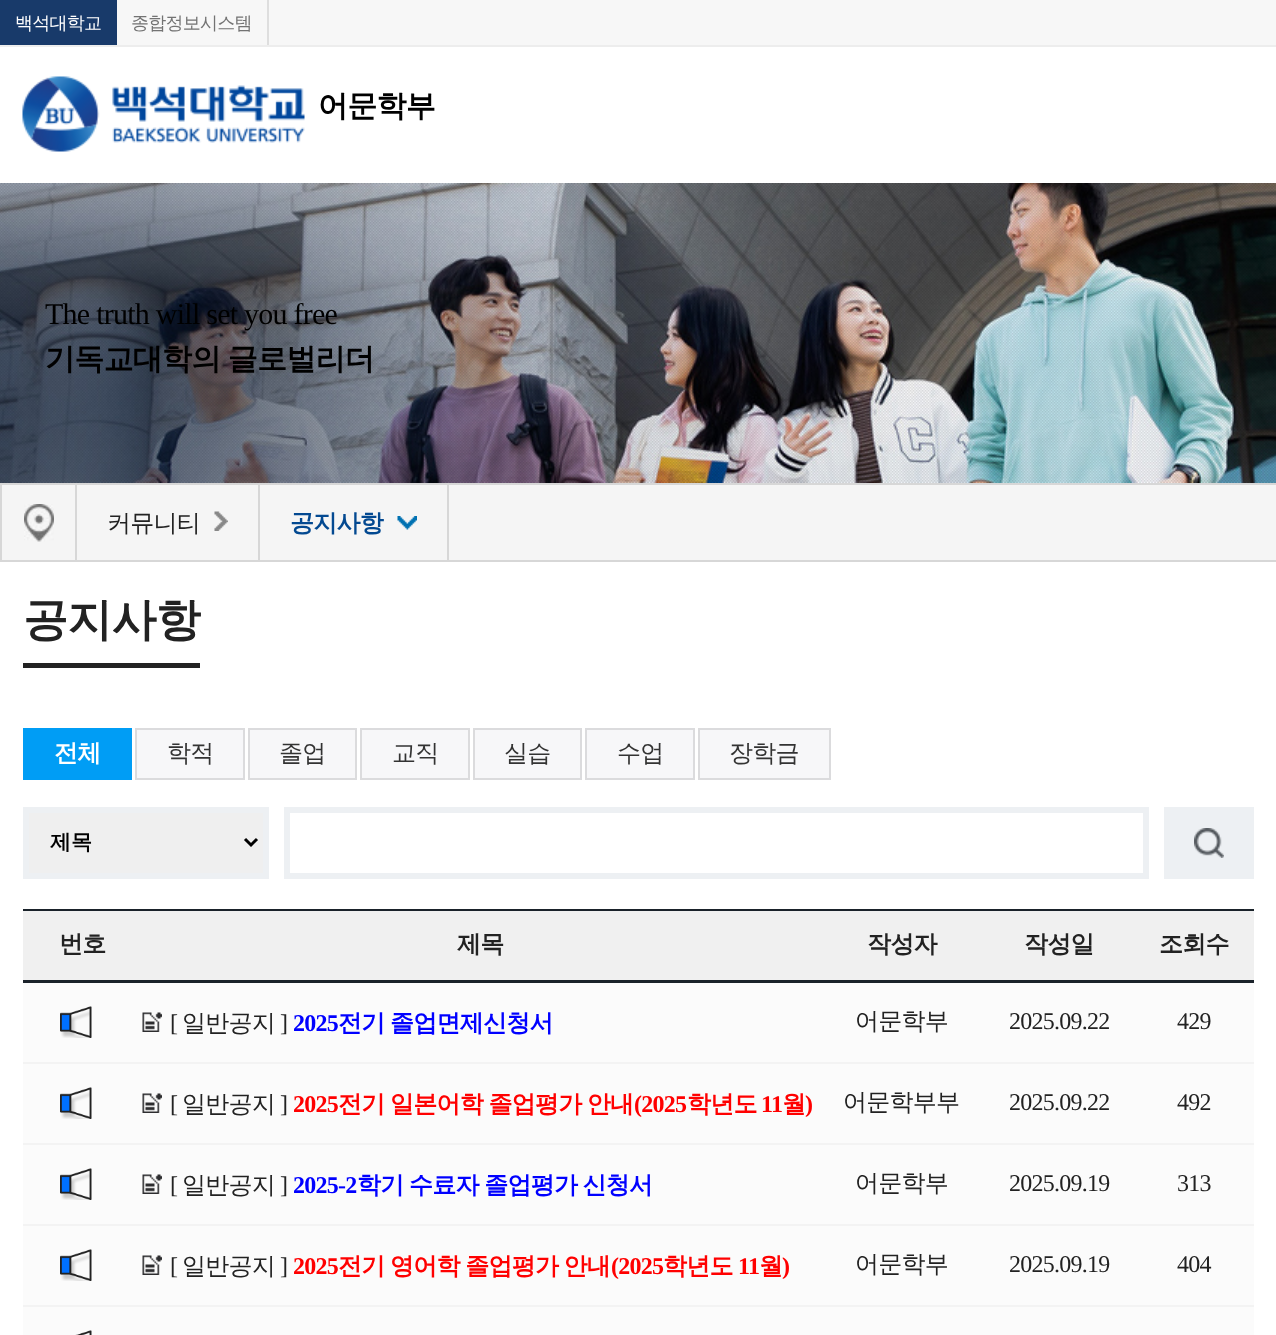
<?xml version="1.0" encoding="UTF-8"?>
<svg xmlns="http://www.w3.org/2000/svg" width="1276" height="1335">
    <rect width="100%" height="100%" fill="#FFFFFF"/>
    <rect x="117" y="0" width="1159" height="45" fill="#F7F7F7"/>
    <rect x="0" y="45" width="1276" height="2" fill="#EDEDED"/>
    <rect x="0" y="0" width="117" height="45" fill="#183A6A"/>
    <text x="15" y="29" font-family="WenQuanYi Zen Hei" font-size="18" font-weight="500" letter-spacing="-0.75" fill="#FFFFFF">백석대학교</text>
    <rect x="267" y="0" width="2" height="45" fill="#DEDEDE"/>
    <text x="131" y="29" font-family="WenQuanYi Zen Hei" font-size="18" font-weight="500" letter-spacing="-0.75" fill="#737373">종합정보시스템</text>
    <image x="22" y="76" width="283" height="76" href="img_01.png"/>
    <text x="318" y="116" font-family="WenQuanYi Zen Hei" font-size="30" font-weight="700" letter-spacing="-0.75" fill="#000000">어문학부</text>
    <image x="0" y="183" width="1276" height="300" href="img_02.png"/>
    <text x="45" y="324" font-family="Liberation Serif" font-size="30" letter-spacing="-0.75" fill="#000000">The truth will set you free</text>
    <text x="45" y="369" word-spacing="-1" font-family="WenQuanYi Zen Hei" font-size="30" font-weight="700" letter-spacing="-0.75" fill="#000000">기독교대학의 글로벌리더</text>
    <rect x="2" y="485" width="1274" height="75" fill="#F5F5F5"/>
    <rect x="0" y="483" width="1276" height="2" fill="#D7D7D7"/>
    <rect x="0" y="560" width="1276" height="2" fill="#D7D7D7"/>
    <image x="24" y="504" width="30" height="38" href="img_03.png"/>
    <rect x="0" y="485" width="2" height="75" fill="#D7D7D7"/>
    <rect x="75" y="485" width="2" height="75" fill="#D7D7D7"/>
    <text x="107" y="531" font-family="WenQuanYi Zen Hei" font-size="24" font-weight="500" letter-spacing="-0.75" fill="#222222">커뮤니티</text>
    <image x="214" y="511" width="14" height="20" href="img_04.png"/>
    <rect x="447" y="485" width="2" height="75" fill="#D7D7D7"/>
    <rect x="258" y="485" width="2" height="75" fill="#D7D7D7"/>
    <text x="290" y="531" font-family="WenQuanYi Zen Hei" font-size="24" font-weight="700" letter-spacing="-0.75" fill="#034991">공지사항</text>
    <image x="397" y="516" width="20" height="14" href="img_05.png"/>
    <text x="23" y="635" font-family="WenQuanYi Zen Hei" font-size="45" font-weight="700" letter-spacing="-0.75" fill="#222222">공지사항</text>
    <rect x="23" y="663" width="177" height="5" fill="#222222"/>
    <rect x="23" y="728" width="109" height="52" fill="#009DF5"/>
    <text x="54" y="761" font-family="WenQuanYi Zen Hei" font-size="24" font-weight="700" letter-spacing="-0.75" fill="#FFFFFF">전체</text>
    <rect x="136" y="729" width="108" height="50" fill="#F7F7F9" stroke="#DBDBDD" stroke-width="2"/>
    <text x="167" y="761" font-family="WenQuanYi Zen Hei" font-size="24" font-weight="500" letter-spacing="-0.75" fill="#333333">학적</text>
    <rect x="249" y="729" width="107" height="50" fill="#F7F7F9" stroke="#DBDBDD" stroke-width="2"/>
    <text x="279" y="761" font-family="WenQuanYi Zen Hei" font-size="24" font-weight="500" letter-spacing="-0.75" fill="#333333">졸업</text>
    <rect x="361" y="729" width="108" height="50" fill="#F7F7F9" stroke="#DBDBDD" stroke-width="2"/>
    <text x="392" y="761" font-family="WenQuanYi Zen Hei" font-size="24" font-weight="500" letter-spacing="-0.75" fill="#333333">교직</text>
    <rect x="474" y="729" width="107" height="50" fill="#F7F7F9" stroke="#DBDBDD" stroke-width="2"/>
    <text x="504" y="761" font-family="WenQuanYi Zen Hei" font-size="24" font-weight="500" letter-spacing="-0.75" fill="#333333">실습</text>
    <rect x="586" y="729" width="108" height="50" fill="#F7F7F9" stroke="#DBDBDD" stroke-width="2"/>
    <text x="617" y="761" font-family="WenQuanYi Zen Hei" font-size="24" font-weight="500" letter-spacing="-0.75" fill="#333333">수업</text>
    <rect x="699" y="729" width="131" height="50" fill="#F7F7F9" stroke="#DBDBDD" stroke-width="2"/>
    <text x="729" y="761" font-family="WenQuanYi Zen Hei" font-size="24" font-weight="500" letter-spacing="-0.75" fill="#333333">장학금</text>
    <rect x="26" y="810" width="240" height="66" fill="#EFEFEF" stroke="#EDF0F3" stroke-width="6"/>
    <path d="M 245 839 L 251 845 L 257 839" fill="none" stroke="#000000" stroke-width="3"/>
    <text x="50" y="849" font-family="WenQuanYi Zen Hei" font-size="21" font-weight="700" fill="#000000">제목</text>
    <rect x="287" y="810" width="859" height="66" fill="none" stroke="#EDF0F3" stroke-width="6"/>
    <rect x="1164" y="807" width="90" height="72" fill="#EDF0F3"/>
    <image x="1194" y="828" width="30" height="30" href="img_06.png"/>
    <rect x="23" y="909" width="1231" height="2" fill="#1A222A"/>
    <rect x="23" y="980" width="1231" height="3" fill="#1A222A"/>
    <rect x="23" y="911" width="1231" height="69" fill="#F0F0F0"/>
    <text x="59" y="952" font-family="WenQuanYi Zen Hei" font-size="24" font-weight="700" letter-spacing="-0.75" fill="#222222">번호</text>
    <text x="457" y="952" font-family="WenQuanYi Zen Hei" font-size="24" font-weight="700" letter-spacing="-0.75" fill="#222222">제목</text>
    <text x="867" y="952" font-family="WenQuanYi Zen Hei" font-size="24" font-weight="700" letter-spacing="-0.75" fill="#222222">작성자</text>
    <text x="1024" y="952" font-family="WenQuanYi Zen Hei" font-size="24" font-weight="700" letter-spacing="-0.75" fill="#222222">작성일</text>
    <text x="1159" y="952" font-family="WenQuanYi Zen Hei" font-size="24" font-weight="700" letter-spacing="-0.75" fill="#222222">조회수</text>
    <rect x="23" y="983" width="1231" height="79" fill="#FBFBFB"/>
    <image x="60" y="1006" width="32" height="32" href="img_07.png"/>
    <image x="142" y="1012" width="20" height="20" href="img_08.png"/>
    <text x="170" y="1031" font-family="Liberation Serif" font-size="24" letter-spacing="-0.75" fill="#222222">[</text>
    <text x="182" y="1031" font-family="WenQuanYi Zen Hei" font-size="24" font-weight="500" letter-spacing="-0.75" fill="#222222">일반공지</text>
    <text x="280" y="1031" font-family="Liberation Serif" font-size="24" letter-spacing="-0.75" fill="#222222">]</text>
    <text x="293" y="1031" font-family="Liberation Serif" font-size="24" font-weight="700" letter-spacing="-0.75" fill="#0000FF">2025</text>
    <text x="338" y="1031" word-spacing="-1" font-family="WenQuanYi Zen Hei" font-size="24" font-weight="700" letter-spacing="-0.75" fill="#0000FF">전기 졸업면제신청서</text>
    <text x="855" y="1029" font-family="WenQuanYi Zen Hei" font-size="24" font-weight="500" letter-spacing="-0.75" fill="#222222">어문학부</text>
    <text x="1009" y="1029" font-family="Liberation Serif" font-size="24" letter-spacing="-0.75" fill="#222222">2025.09.22</text>
    <rect x="23" y="1062" width="1231" height="2" fill="#F3F3F3"/>
    <text x="1177" y="1029" font-family="Liberation Serif" font-size="24" letter-spacing="-0.75" fill="#222222">429</text>
    <rect x="23" y="1064" width="1231" height="79" fill="#FBFBFB"/>
    <image x="60" y="1087" width="32" height="32" href="img_07.png"/>
    <image x="142" y="1093" width="20" height="20" href="img_08.png"/>
    <text x="170" y="1112" font-family="Liberation Serif" font-size="24" letter-spacing="-0.75" fill="#222222">[</text>
    <text x="182" y="1112" font-family="WenQuanYi Zen Hei" font-size="24" font-weight="500" letter-spacing="-0.75" fill="#222222">일반공지</text>
    <text x="280" y="1112" font-family="Liberation Serif" font-size="24" letter-spacing="-0.75" fill="#222222">]</text>
    <text x="293" y="1112" font-family="Liberation Serif" font-size="24" font-weight="700" letter-spacing="-0.75" fill="#FF0000">2025</text>
    <text x="338" y="1112" word-spacing="-1" font-family="WenQuanYi Zen Hei" font-size="24" font-weight="700" letter-spacing="-0.75" fill="#FF0000">전기 일본어학 졸업평가 안내</text>
    <text x="634" y="1112" font-family="Liberation Serif" font-size="24" font-weight="700" letter-spacing="-0.75" fill="#FF0000">(2025</text>
    <text x="687" y="1112" font-family="WenQuanYi Zen Hei" font-size="24" font-weight="700" letter-spacing="-0.75" fill="#FF0000">학년도</text>
    <text x="761" y="1112" font-family="Liberation Serif" font-size="24" font-weight="700" letter-spacing="-0.75" fill="#FF0000">11</text>
    <text x="782" y="1112" font-family="WenQuanYi Zen Hei" font-size="24" font-weight="700" letter-spacing="-0.75" fill="#FF0000">월</text>
    <text x="805" y="1112" font-family="Liberation Serif" font-size="24" font-weight="700" letter-spacing="-0.75" fill="#FF0000">)</text>
    <text x="843" y="1110" font-family="WenQuanYi Zen Hei" font-size="24" font-weight="500" letter-spacing="-0.75" fill="#222222">어문학부부</text>
    <text x="1009" y="1110" font-family="Liberation Serif" font-size="24" letter-spacing="-0.75" fill="#222222">2025.09.22</text>
    <rect x="23" y="1143" width="1231" height="2" fill="#F3F3F3"/>
    <text x="1177" y="1110" font-family="Liberation Serif" font-size="24" letter-spacing="-0.75" fill="#222222">492</text>
    <rect x="23" y="1145" width="1231" height="79" fill="#FBFBFB"/>
    <image x="60" y="1168" width="32" height="32" href="img_07.png"/>
    <image x="142" y="1174" width="20" height="20" href="img_08.png"/>
    <text x="170" y="1193" font-family="Liberation Serif" font-size="24" letter-spacing="-0.75" fill="#222222">[</text>
    <text x="182" y="1193" font-family="WenQuanYi Zen Hei" font-size="24" font-weight="500" letter-spacing="-0.75" fill="#222222">일반공지</text>
    <text x="280" y="1193" font-family="Liberation Serif" font-size="24" letter-spacing="-0.75" fill="#222222">]</text>
    <text x="293" y="1193" font-family="Liberation Serif" font-size="24" font-weight="700" letter-spacing="-0.75" fill="#0000FF">2025-2</text>
    <text x="357" y="1193" word-spacing="-1" font-family="WenQuanYi Zen Hei" font-size="24" font-weight="700" letter-spacing="-0.75" fill="#0000FF">학기 수료자 졸업평가 신청서</text>
    <text x="855" y="1191" font-family="WenQuanYi Zen Hei" font-size="24" font-weight="500" letter-spacing="-0.75" fill="#222222">어문학부</text>
    <text x="1009" y="1191" font-family="Liberation Serif" font-size="24" letter-spacing="-0.75" fill="#222222">2025.09.19</text>
    <rect x="23" y="1224" width="1231" height="2" fill="#F3F3F3"/>
    <text x="1177" y="1191" font-family="Liberation Serif" font-size="24" letter-spacing="-0.75" fill="#222222">313</text>
    <rect x="23" y="1226" width="1231" height="79" fill="#FBFBFB"/>
    <image x="60" y="1249" width="32" height="32" href="img_07.png"/>
    <image x="142" y="1255" width="20" height="20" href="img_08.png"/>
    <text x="170" y="1274" font-family="Liberation Serif" font-size="24" letter-spacing="-0.75" fill="#222222">[</text>
    <text x="182" y="1274" font-family="WenQuanYi Zen Hei" font-size="24" font-weight="500" letter-spacing="-0.75" fill="#222222">일반공지</text>
    <text x="280" y="1274" font-family="Liberation Serif" font-size="24" letter-spacing="-0.75" fill="#222222">]</text>
    <text x="293" y="1274" font-family="Liberation Serif" font-size="24" font-weight="700" letter-spacing="-0.75" fill="#FF0000">2025</text>
    <text x="338" y="1274" word-spacing="-1" font-family="WenQuanYi Zen Hei" font-size="24" font-weight="700" letter-spacing="-0.75" fill="#FF0000">전기 영어학 졸업평가 안내</text>
    <text x="611" y="1274" font-family="Liberation Serif" font-size="24" font-weight="700" letter-spacing="-0.75" fill="#FF0000">(2025</text>
    <text x="663" y="1274" font-family="WenQuanYi Zen Hei" font-size="24" font-weight="700" letter-spacing="-0.75" fill="#FF0000">학년도</text>
    <text x="738" y="1274" font-family="Liberation Serif" font-size="24" font-weight="700" letter-spacing="-0.75" fill="#FF0000">11</text>
    <text x="759" y="1274" font-family="WenQuanYi Zen Hei" font-size="24" font-weight="700" letter-spacing="-0.75" fill="#FF0000">월</text>
    <text x="782" y="1274" font-family="Liberation Serif" font-size="24" font-weight="700" letter-spacing="-0.75" fill="#FF0000">)</text>
    <text x="855" y="1272" font-family="WenQuanYi Zen Hei" font-size="24" font-weight="500" letter-spacing="-0.75" fill="#222222">어문학부</text>
    <text x="1009" y="1272" font-family="Liberation Serif" font-size="24" letter-spacing="-0.75" fill="#222222">2025.09.19</text>
    <rect x="23" y="1305" width="1231" height="2" fill="#F3F3F3"/>
    <text x="1177" y="1272" font-family="Liberation Serif" font-size="24" letter-spacing="-0.75" fill="#222222">404</text>
    <rect x="23" y="1307" width="1231" height="28" fill="#FBFBFB"/>
    <image x="75" y="1330" width="17" height="5" href="img_09.png"/>
</svg>
